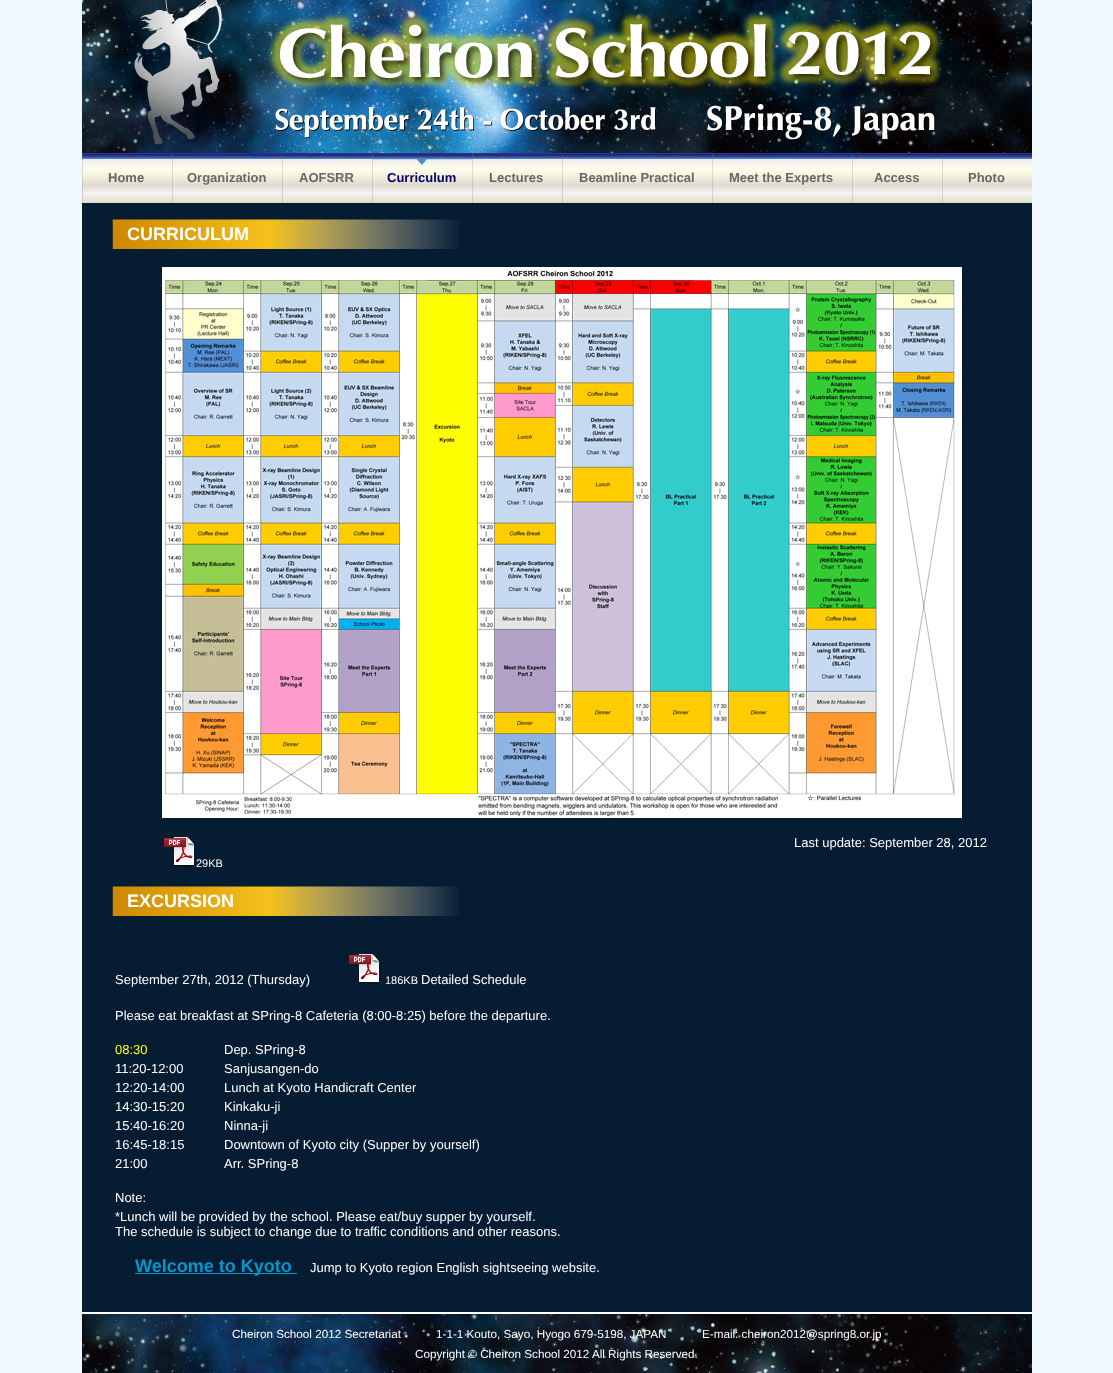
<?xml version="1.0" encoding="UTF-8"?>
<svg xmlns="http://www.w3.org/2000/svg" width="1113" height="1373">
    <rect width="100%" height="100%" fill="#F0F8FF"/>
    <rect x="82" y="203" width="950" height="1109" fill="#051C33"/>
    <image x="82" y="0" width="950" height="153" href="img_01.png"/>
    <image x="82" y="153" width="90" height="50" href="img_02.png"/>
    <text x="108" y="182" font-family="Liberation Sans" font-size="13" font-weight="700" fill="#666666">Home</text>
    <image x="172" y="153" width="110" height="50" href="img_03.png"/>
    <text x="187" y="182" font-family="Liberation Sans" font-size="13" font-weight="700" fill="#666666">Organization</text>
    <image x="282" y="153" width="90" height="50" href="img_02.png"/>
    <text x="299" y="182" font-family="Liberation Sans" font-size="13" font-weight="700" fill="#666666">AOFSRR</text>
    <image x="372" y="153" width="100" height="50" href="img_04.png"/>
    <image x="372" y="159" width="100" height="6" href="img_05.png"/>
    <text x="387" y="182" font-family="Liberation Sans" font-size="13" font-weight="700" fill="#000066">Curriculum</text>
    <image x="472" y="153" width="90" height="50" href="img_02.png"/>
    <text x="489" y="182" font-family="Liberation Sans" font-size="13" font-weight="700" fill="#666666">Lectures</text>
    <image x="562" y="153" width="150" height="50" href="img_06.png"/>
    <text x="579" y="182" font-family="Liberation Sans" font-size="13" font-weight="700" fill="#666666">Beamline Practical</text>
    <image x="712" y="153" width="140" height="50" href="img_07.png"/>
    <text x="729" y="182" font-family="Liberation Sans" font-size="13" font-weight="700" fill="#666666">Meet the Experts</text>
    <image x="852" y="153" width="90" height="50" href="img_02.png"/>
    <text x="874" y="182" font-family="Liberation Sans" font-size="13" font-weight="700" fill="#666666">Access</text>
    <image x="942" y="153" width="90" height="50" href="img_02.png"/>
    <text x="968" y="182" font-family="Liberation Sans" font-size="13" font-weight="700" fill="#666666">Photo</text>
    <image x="112" y="219" width="347" height="30" href="img_08.png"/>
    <text x="127" y="240" font-family="Liberation Sans" font-size="18" font-weight="700" fill="#FFFFFF">CURRICULUM</text>
    <image x="162" y="267" width="800" height="551" href="img_09.png"/>
    <text x="794" y="847" font-family="Liberation Sans" font-size="13" fill="#FFFFFF">Last update: September 28, 2012</text>
    <image x="164" y="837" width="31" height="30" href="img_10.png"/>
    <text x="196" y="867" font-family="Liberation Sans" font-size="11" fill="#FFFFFF">29KB</text>
    <image x="112" y="886" width="347" height="30" href="img_08.png"/>
    <text x="127" y="907" font-family="Liberation Sans" font-size="18" font-weight="700" fill="#FFFFFF">EXCURSION</text>
    <text x="115" y="984" font-family="Liberation Sans" font-size="13" fill="#FFFFFF">September 27th, 2012 (Thursday)</text>
    <image x="349" y="954" width="31" height="30" href="img_10.png"/>
    <text x="385" y="984" font-family="Liberation Sans" font-size="11" fill="#FFFFFF">186KB</text>
    <text x="421" y="984" font-family="Liberation Sans" font-size="13" fill="#FFFFFF">Detailed Schedule</text>
    <text x="115" y="1020" font-family="Liberation Sans" font-size="13" fill="#FFFFFF">Please eat breakfast at SPring-8 Cafeteria (8:00-8:25) before the departure.</text>
    <text x="115" y="1054" font-family="Liberation Sans" font-size="13" fill="#FFFF00">08:30</text>
    <text x="224" y="1054" font-family="Liberation Sans" font-size="13" fill="#FFFFFF">Dep. SPring-8</text>
    <text x="115" y="1073" font-family="Liberation Sans" font-size="13" fill="#FFFFFF">11:20-12:00</text>
    <text x="224" y="1073" font-family="Liberation Sans" font-size="13" fill="#FFFFFF">Sanjusangen-do</text>
    <text x="115" y="1092" font-family="Liberation Sans" font-size="13" fill="#FFFFFF">12:20-14:00</text>
    <text x="224" y="1092" font-family="Liberation Sans" font-size="13" fill="#FFFFFF">Lunch at Kyoto Handicraft Center</text>
    <text x="115" y="1111" font-family="Liberation Sans" font-size="13" fill="#FFFFFF">14:30-15:20</text>
    <text x="224" y="1111" font-family="Liberation Sans" font-size="13" fill="#FFFFFF">Kinkaku-ji</text>
    <text x="115" y="1130" font-family="Liberation Sans" font-size="13" fill="#FFFFFF">15:40-16:20</text>
    <text x="224" y="1130" font-family="Liberation Sans" font-size="13" fill="#FFFFFF">Ninna-ji</text>
    <text x="115" y="1149" font-family="Liberation Sans" font-size="13" fill="#FFFFFF">16:45-18:15</text>
    <text x="224" y="1149" font-family="Liberation Sans" font-size="13" fill="#FFFFFF">Downtown of Kyoto city (Supper by yourself)</text>
    <text x="115" y="1168" font-family="Liberation Sans" font-size="13" fill="#FFFFFF">21:00</text>
    <text x="224" y="1168" font-family="Liberation Sans" font-size="13" fill="#FFFFFF">Arr. SPring-8</text>
    <text font-family="Liberation Sans" font-size="13" fill="#FFFFFF">
        <tspan x="115" y="1202">Note:</tspan>
        <tspan x="115" y="1221">*Lunch will be provided by the school. Please eat/buy supper by yourself.</tspan>
        <tspan x="115" y="1236">The schedule is subject to change due to traffic conditions and other reasons.</tspan>
    </text>
    <rect x="135" y="1273" width="162" height="1" fill="#0099CC"/>
    <text x="135" y="1272" font-family="Liberation Sans" font-size="18" font-weight="700" fill="#0099CC">Welcome to Kyoto</text>
    <text x="310" y="1272" font-family="Liberation Sans" font-size="13" fill="#FFFFFF">Jump to Kyoto region English sightseeing website.</text>
    <image x="82" y="1314" width="950" height="59" href="img_11.png"/>
    <rect x="82" y="1312" width="950" height="2" fill="#FFFFFF"/>
    <text x="232" y="1338" font-family="Liberation Sans" font-size="11.7" fill="#FFFFFF">Cheiron School 2012 Secretariat</text>
    <text x="436" y="1338" font-family="Liberation Sans" font-size="11.7" fill="#FFFFFF">1-1-1 Kouto, Sayo, Hyogo 679-5198, JAPAN</text>
    <text x="702" y="1338" font-family="Liberation Sans" font-size="11.7" fill="#FFFFFF">E-mail: cheiron2012@spring8.or.jp</text>
    <text x="415" y="1358" font-family="Liberation Sans" font-size="11.7" fill="#FFFFFF">Copyright © Cheiron School 2012 All Rights Reserved.</text>
</svg>
